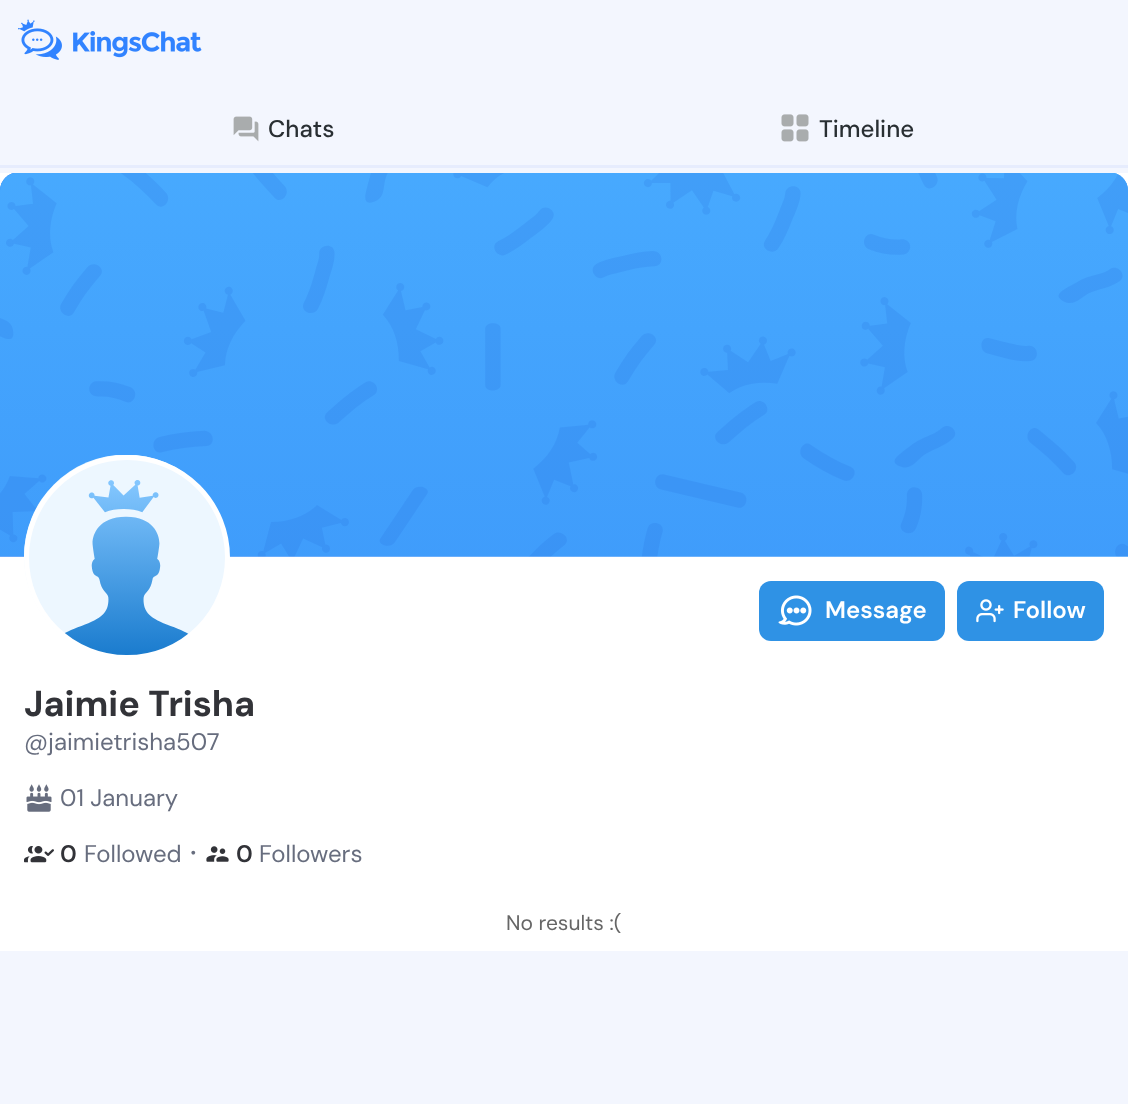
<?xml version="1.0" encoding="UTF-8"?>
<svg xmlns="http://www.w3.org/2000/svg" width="1128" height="1104">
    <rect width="100%" height="100%" fill="#F3F6FE"/>
    <image x="18" y="19" width="184" height="41" href="img_01.png"/>
    <rect x="0" y="165" width="1128" height="3" fill="#E6ECFD"/>
    <image x="233" y="116" width="26" height="26" href="img_02.png"/>
    <text x="268" y="137" font-family="DM Sans" font-size="24" font-weight="500" fill="#292F33">Chats</text>
    <image x="781" y="114" width="28" height="28" href="img_03.png"/>
    <text x="819" y="137" font-family="DM Sans" font-size="24" font-weight="500" fill="#292F33">Timeline</text>
    <rect x="0" y="173" width="1128" height="778" fill="#FFFFFF"/>
    <image x="0" y="173" width="1128" height="384" href="img_04.png"/>
    <image x="24" y="455" width="201" height="200" href="img_05.png"/>
    <rect x="26.5" y="457.5" width="201" height="200" rx="100" fill="none" stroke="#FFFFFF" stroke-width="5"/>
    <rect x="759" y="581" width="186" height="60" rx="12" fill="#2F92E5"/>
    <image x="778" y="595" width="34" height="31" href="img_06.png"/>
    <text x="825" y="618" font-family="DM Sans" font-size="24" font-weight="600" fill="#FFFFFF">Message</text>
    <rect x="957" y="581" width="147" height="60" rx="12" fill="#2F92E5"/>
    <image x="976" y="599" width="28" height="24" href="img_07.png"/>
    <text x="1013" y="618" font-family="DM Sans" font-size="24" font-weight="600" fill="#FFFFFF">Follow</text>
    <text x="24" y="716" font-family="DM Sans" font-size="36" font-weight="700" fill="#323338">Jaimie Trisha</text>
    <text x="24" y="750" font-family="DM Sans" font-size="24" fill="#676D7E">@jaimietrisha507</text>
    <image x="26" y="784" width="26" height="28" href="img_08.png"/>
    <text x="60" y="806" font-family="DM Sans" font-size="24" fill="#676D7E">01 January</text>
    <image x="24" y="846" width="30" height="17" href="img_09.png"/>
    <text x="60" y="862" font-family="DM Sans" font-size="24" font-weight="600" fill="#323338">0</text>
    <text x="84" y="862" font-family="DM Sans" font-size="24" fill="#676D7E">Followed</text>
    <text x="181" y="861" font-family="WenQuanYi Zen Hei" font-size="24" font-weight="500" fill="#676D7E">・</text>
    <image x="206" y="846" width="23" height="16" href="img_10.png"/>
    <text x="236" y="862" font-family="DM Sans" font-size="24" font-weight="600" fill="#323338">0</text>
    <text x="259" y="862" font-family="DM Sans" font-size="24" fill="#676D7E">Followers</text>
    <text x="506" y="930" font-family="DM Sans" font-size="21" fill="#666666">No results :(</text>
</svg>
